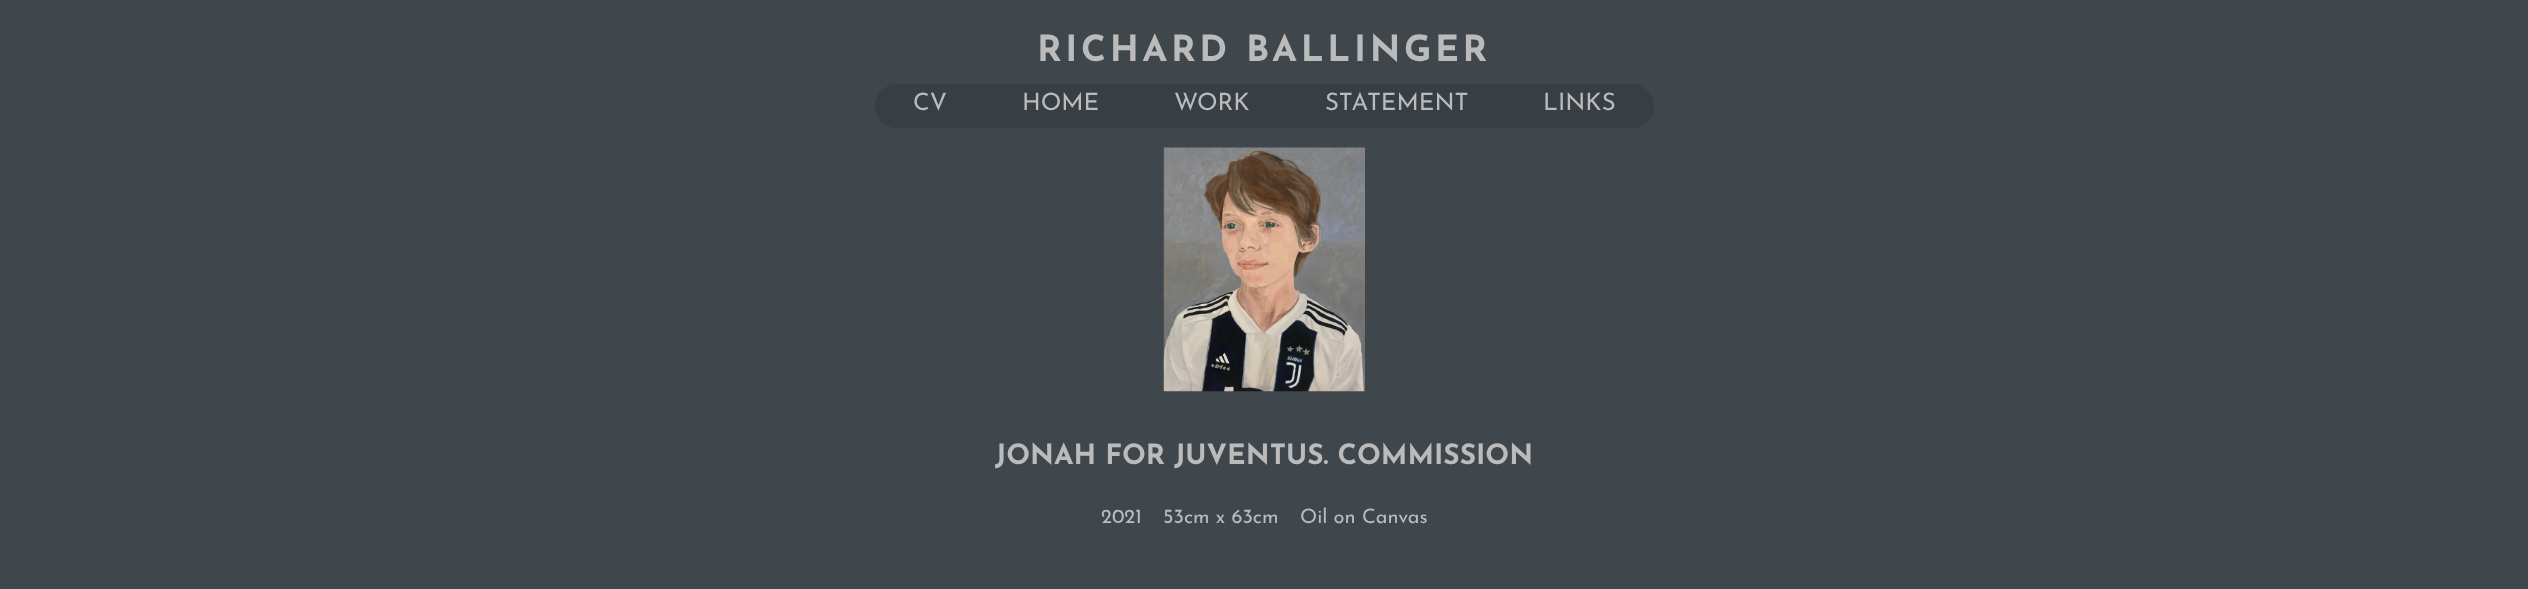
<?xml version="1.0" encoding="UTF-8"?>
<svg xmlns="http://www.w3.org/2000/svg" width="2528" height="589">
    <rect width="100%" height="100%" fill="#3F474C"/>
    <text x="1037" y="61" font-family="Josefin Sans" font-size="36" font-weight="700" letter-spacing="3.6" fill="#BBBBBB">RICHARD BALLINGER</text>
    <path d="M 897 84 H 985 V 128 H 897 C 885 128 875 118 875 106 C 875 94 885 84 897 84 Z" fill="#373F44"/>
    <text x="913" y="110" font-family="Josefin Sans" font-size="24" fill="#BBBBBB">CV</text>
    <rect x="985" y="84" width="520" height="44" fill="#373F44"/>
    <text x="1022" y="110" font-family="Josefin Sans" font-size="24" fill="#BBBBBB">HOME</text>
    <text x="1174" y="110" font-family="Josefin Sans" font-size="24" fill="#BBBBBB">WORK</text>
    <text x="1325" y="110" font-family="Josefin Sans" font-size="24" fill="#BBBBBB">STATEMENT</text>
    <path d="M 1505 84 H 1632 C 1644 84 1654 94 1654 106 C 1654 118 1644 128 1632 128 H 1505 Z" fill="#373F44"/>
    <text x="1543" y="110" font-family="Josefin Sans" font-size="24" fill="#BBBBBB">LINKS</text>
    <image x="1163" y="147" width="202" height="245" href="img_01.png"/>
    <text x="995" y="464" font-family="Josefin Sans" font-size="28" font-weight="700" fill="#BBBBBB">JONAH FOR JUVENTUS. COMMISSION</text>
    <text x="1101" y="523" font-family="Josefin Sans" font-size="20" fill="#BBBBBB">2021</text>
    <text x="1163" y="523" font-family="Josefin Sans" font-size="20" fill="#BBBBBB">53cm x 63cm</text>
    <text x="1300" y="523" font-family="Josefin Sans" font-size="20" fill="#BBBBBB">Oil on Canvas</text>
</svg>
